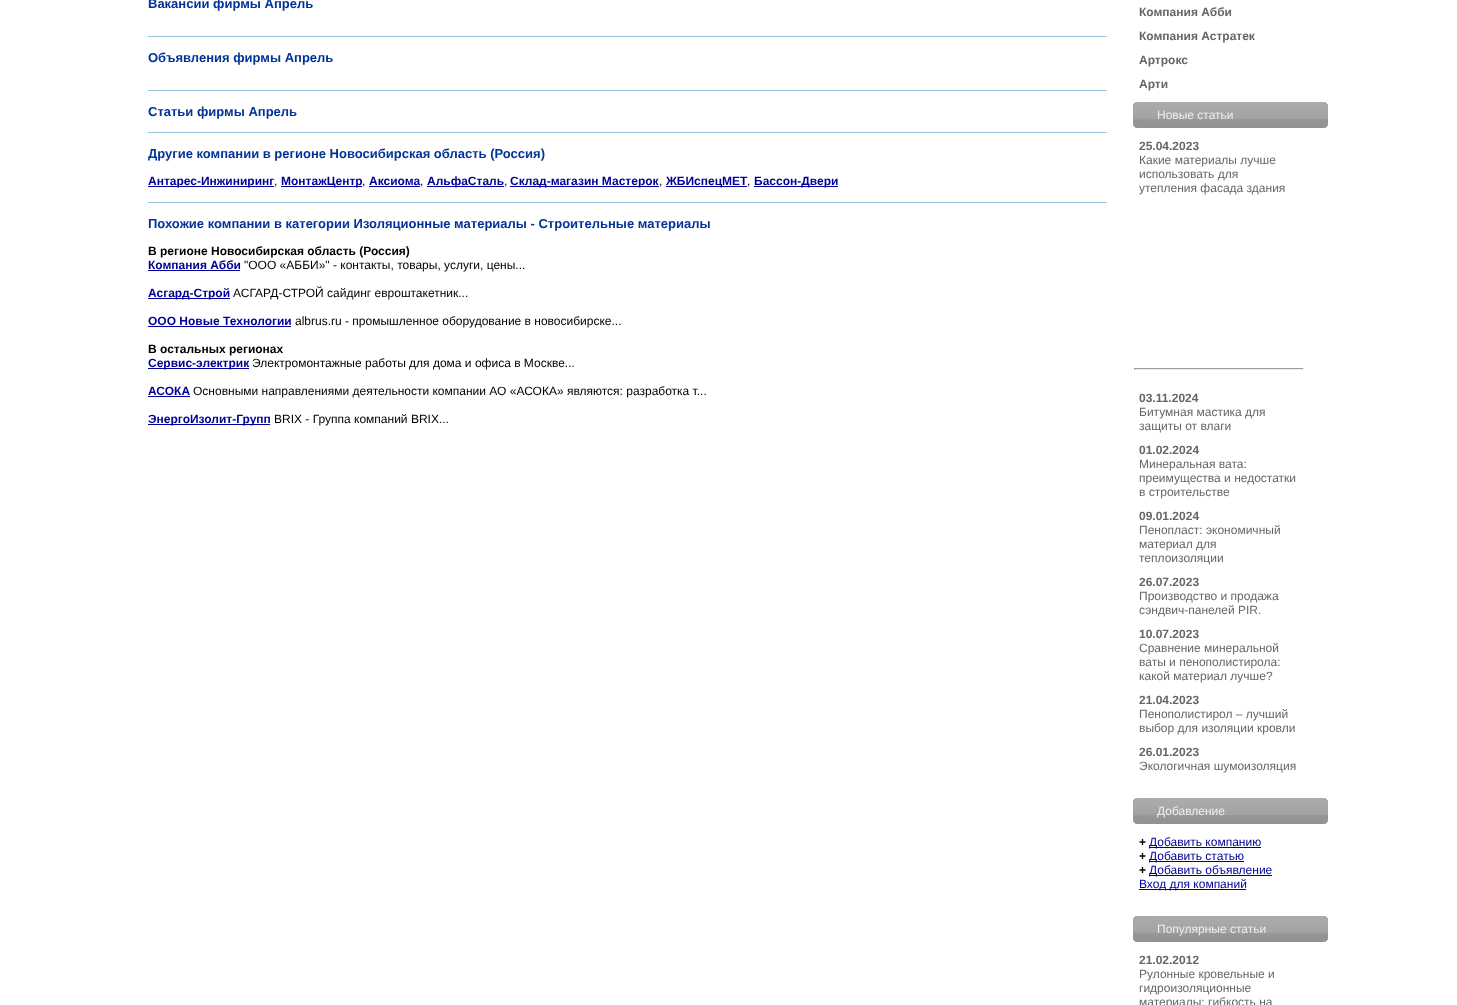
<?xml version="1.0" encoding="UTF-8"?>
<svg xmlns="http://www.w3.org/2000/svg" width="1457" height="1005">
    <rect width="100%" height="100%" fill="#FFFFFF"/>
    <text x="148" y="8" font-family="Liberation Sans" font-size="13" font-weight="700" fill="#003399">Вакансии фирмы Апрель</text>
    <rect x="148" y="36" width="959" height="1" fill="#99C3DB"/>
    <text x="148" y="62" font-family="Liberation Sans" font-size="13" font-weight="700" fill="#003399">Объявления фирмы Апрель</text>
    <rect x="148" y="90" width="959" height="1" fill="#99C3DB"/>
    <text x="148" y="116" font-family="Liberation Sans" font-size="13" font-weight="700" fill="#003399">Статьи фирмы Апрель</text>
    <rect x="148" y="132" width="959" height="1" fill="#99C3DB"/>
    <text x="148" y="158" font-family="Liberation Sans" font-size="13" font-weight="700" fill="#003399">Другие компании в регионе Новосибирская область (Россия)</text>
    <rect x="148" y="186" width="126" height="1" fill="#000099"/>
    <text x="148" y="185" font-family="Liberation Sans" font-size="12" font-weight="700" fill="#000099">Антарес-Инжиниринг</text>
    <text x="274" y="185" font-family="Liberation Sans" font-size="12" fill="#000000">,</text>
    <rect x="281" y="186" width="81" height="1" fill="#000099"/>
    <text x="281" y="185" font-family="Liberation Sans" font-size="12" font-weight="700" fill="#000099">МонтажЦентр</text>
    <text x="362" y="185" font-family="Liberation Sans" font-size="12" fill="#000000">,</text>
    <text x="369" y="185" font-family="Liberation Sans" font-size="12" font-weight="700" fill="#000099">Аксиома</text>
    <rect x="369" y="186" width="51" height="1" fill="#000099"/>
    <text x="420" y="185" font-family="Liberation Sans" font-size="12" fill="#000000">,</text>
    <rect x="427" y="186" width="77" height="1" fill="#000099"/>
    <text x="427" y="185" font-family="Liberation Sans" font-size="12" font-weight="700" fill="#000099">АльфаСталь</text>
    <text x="504" y="185" font-family="Liberation Sans" font-size="12" fill="#000000">,</text>
    <rect x="510" y="186" width="149" height="1" fill="#000099"/>
    <text x="510" y="185" font-family="Liberation Sans" font-size="12" font-weight="700" fill="#000099">Склад-магазин Мастерок</text>
    <text x="659" y="185" font-family="Liberation Sans" font-size="12" fill="#000000">,</text>
    <rect x="666" y="186" width="81" height="1" fill="#000099"/>
    <text x="666" y="185" font-family="Liberation Sans" font-size="12" font-weight="700" fill="#000099">ЖБИспецМЕТ</text>
    <text x="747" y="185" font-family="Liberation Sans" font-size="12" fill="#000000">,</text>
    <rect x="754" y="186" width="84" height="1" fill="#000099"/>
    <text x="754" y="185" font-family="Liberation Sans" font-size="12" font-weight="700" fill="#000099">Бассон-Двери</text>
    <rect x="148" y="202" width="959" height="1" fill="#99C3DB"/>
    <text x="148" y="228" font-family="Liberation Sans" font-size="13" font-weight="700" fill="#003399">Похожие компании в категории Изоляционные материалы - Строительные материалы</text>
    <text x="148" y="255" font-family="Liberation Sans" font-size="12" font-weight="700" fill="#000000">В регионе Новосибирская область (Россия)</text>
    <text x="148" y="269" font-family="Liberation Sans" font-size="12" font-weight="700" fill="#000099">Компания Абби</text>
    <rect x="148" y="270" width="92" height="1" fill="#000099"/>
    <text x="244" y="269" font-family="Liberation Sans" font-size="12" fill="#000000">"ООО «АББИ»" - контакты, товары, услуги, цены...</text>
    <rect x="148" y="298" width="82" height="1" fill="#000099"/>
    <text x="148" y="297" font-family="Liberation Sans" font-size="12" font-weight="700" fill="#000099">Асгард-Строй</text>
    <text x="233" y="297" font-family="Liberation Sans" font-size="12" fill="#000000">АСГАРД-СТРОЙ сайдинг евроштакетник...</text>
    <text x="148" y="325" font-family="Liberation Sans" font-size="12" font-weight="700" fill="#000099">ООО Новые Технологии</text>
    <rect x="148" y="326" width="143" height="1" fill="#000099"/>
    <text x="295" y="325" font-family="Liberation Sans" font-size="12" fill="#000000">albrus.ru - промышленное оборудование в новосибирске...</text>
    <text x="148" y="353" font-family="Liberation Sans" font-size="12" font-weight="700" fill="#000000">В остальных регионах</text>
    <rect x="148" y="368" width="101" height="1" fill="#000099"/>
    <text x="148" y="367" font-family="Liberation Sans" font-size="12" font-weight="700" fill="#000099">Сервис-электрик</text>
    <text x="252" y="367" font-family="Liberation Sans" font-size="12" fill="#000000">Электромонтажные работы для дома и офиса в Москве...</text>
    <text x="148" y="395" font-family="Liberation Sans" font-size="12" font-weight="700" fill="#000099">АСОКА</text>
    <rect x="148" y="396" width="42" height="1" fill="#000099"/>
    <text x="193" y="395" font-family="Liberation Sans" font-size="12" fill="#000000">Основными направлениями деятельности компании АО «АСОКА» являются: разработка т...</text>
    <rect x="148" y="424" width="122" height="1" fill="#000099"/>
    <text x="148" y="423" font-family="Liberation Sans" font-size="12" font-weight="700" fill="#000099">ЭнергоИзолит-Групп</text>
    <text x="274" y="423" font-family="Liberation Sans" font-size="12" fill="#000000">BRIX - Группа компаний BRIX...</text>
    <text x="1139" y="16" font-family="Liberation Sans" font-size="12" font-weight="700" fill="#666666">Компания Абби</text>
    <text x="1139" y="40" font-family="Liberation Sans" font-size="12" font-weight="700" fill="#666666">Компания Астратек</text>
    <text x="1139" y="64" font-family="Liberation Sans" font-size="12" font-weight="700" fill="#666666">Артрокс</text>
    <text x="1139" y="88" font-family="Liberation Sans" font-size="12" font-weight="700" fill="#666666">Арти</text>
    <image x="1133" y="102" width="19" height="26" href="img_01.png"/>
    <image x="1152" y="102" width="171" height="26" href="img_02.png"/>
    <text x="1157" y="119" font-family="Liberation Sans" font-size="12" fill="#EEEEEE">Новые статьи</text>
    <image x="1323" y="102" width="5" height="26" href="img_03.png"/>
    <text x="1139" y="150" font-family="Liberation Sans" font-size="12" font-weight="700" fill="#666666">25.04.2023</text>
    <text font-family="Liberation Sans" font-size="12" fill="#666666">
        <tspan x="1139" y="164">Какие материалы лучше</tspan>
        <tspan x="1139" y="178">использовать для</tspan>
        <tspan x="1139" y="192">утепления фасада здания</tspan>
    </text>
    <rect x="1134" y="368" width="170" height="1" fill="#9F9F9F"/>
    <rect x="1303" y="368" width="1" height="2" fill="#EEEEEE"/>
    <rect x="1134" y="369" width="170" height="1" fill="#EEEEEE"/>
    <rect x="1134" y="368" width="1" height="2" fill="#9F9F9F"/>
    <text x="1139" y="402" font-family="Liberation Sans" font-size="12" font-weight="700" fill="#666666">03.11.2024</text>
    <text font-family="Liberation Sans" font-size="12" fill="#666666">
        <tspan x="1139" y="416">Битумная мастика для</tspan>
        <tspan x="1139" y="430">защиты от влаги</tspan>
    </text>
    <text x="1139" y="454" font-family="Liberation Sans" font-size="12" font-weight="700" fill="#666666">01.02.2024</text>
    <text font-family="Liberation Sans" font-size="12" fill="#666666">
        <tspan x="1139" y="468">Минеральная вата:</tspan>
        <tspan x="1139" y="482">преимущества и недостатки</tspan>
        <tspan x="1139" y="496">в строительстве</tspan>
    </text>
    <text x="1139" y="520" font-family="Liberation Sans" font-size="12" font-weight="700" fill="#666666">09.01.2024</text>
    <text font-family="Liberation Sans" font-size="12" fill="#666666">
        <tspan x="1139" y="534">Пенопласт: экономичный</tspan>
        <tspan x="1139" y="548">материал для</tspan>
        <tspan x="1139" y="562">теплоизоляции</tspan>
    </text>
    <text x="1139" y="586" font-family="Liberation Sans" font-size="12" font-weight="700" fill="#666666">26.07.2023</text>
    <text font-family="Liberation Sans" font-size="12" fill="#666666">
        <tspan x="1139" y="600">Производство и продажа</tspan>
        <tspan x="1139" y="614">сэндвич-панелей PIR.</tspan>
    </text>
    <text x="1139" y="638" font-family="Liberation Sans" font-size="12" font-weight="700" fill="#666666">10.07.2023</text>
    <text font-family="Liberation Sans" font-size="12" fill="#666666">
        <tspan x="1139" y="652">Сравнение минеральной</tspan>
        <tspan x="1139" y="666">ваты и пенополистирола:</tspan>
        <tspan x="1139" y="680">какой материал лучше?</tspan>
    </text>
    <text x="1139" y="704" font-family="Liberation Sans" font-size="12" font-weight="700" fill="#666666">21.04.2023</text>
    <text font-family="Liberation Sans" font-size="12" fill="#666666">
        <tspan x="1139" y="718">Пенополистирол – лучший</tspan>
        <tspan x="1139" y="732">выбор для изоляции кровли</tspan>
    </text>
    <text x="1139" y="756" font-family="Liberation Sans" font-size="12" font-weight="700" fill="#666666">26.01.2023</text>
    <text x="1139" y="770" font-family="Liberation Sans" font-size="12" fill="#666666">Экологичная шумоизоляция</text>
    <image x="1133" y="798" width="19" height="26" href="img_01.png"/>
    <image x="1152" y="798" width="171" height="26" href="img_02.png"/>
    <text x="1157" y="815" font-family="Liberation Sans" font-size="12" fill="#EEEEEE">Добавление</text>
    <image x="1323" y="798" width="5" height="26" href="img_03.png"/>
    <text x="1139" y="846" font-family="Liberation Sans" font-size="12" font-weight="700" fill="#000000">+</text>
    <rect x="1149" y="847" width="112" height="1" fill="#000099"/>
    <text x="1149" y="846" font-family="Liberation Sans" font-size="12" fill="#000099">Добавить компанию</text>
    <text x="1139" y="860" font-family="Liberation Sans" font-size="12" font-weight="700" fill="#000000">+</text>
    <rect x="1149" y="861" width="95" height="1" fill="#000099"/>
    <text x="1149" y="860" font-family="Liberation Sans" font-size="12" fill="#000099">Добавить статью</text>
    <text x="1139" y="874" font-family="Liberation Sans" font-size="12" font-weight="700" fill="#000000">+</text>
    <rect x="1149" y="875" width="123" height="1" fill="#000099"/>
    <text x="1149" y="874" font-family="Liberation Sans" font-size="12" fill="#000099">Добавить объявление</text>
    <rect x="1139" y="889" width="107" height="1" fill="#000099"/>
    <text x="1139" y="888" font-family="Liberation Sans" font-size="12" fill="#000099">Вход для компаний</text>
    <image x="1133" y="916" width="19" height="26" href="img_01.png"/>
    <image x="1152" y="916" width="171" height="26" href="img_02.png"/>
    <text x="1157" y="933" font-family="Liberation Sans" font-size="12" fill="#EEEEEE">Популярные статьи</text>
    <image x="1323" y="916" width="5" height="26" href="img_03.png"/>
    <text x="1139" y="964" font-family="Liberation Sans" font-size="12" font-weight="700" fill="#666666">21.02.2012</text>
    <text font-family="Liberation Sans" font-size="12" fill="#666666">
        <tspan x="1139" y="978">Рулонные кровельные и</tspan>
        <tspan x="1139" y="992">гидроизоляционные</tspan>
        <tspan x="1139" y="1006">материалы: гибкость на</tspan>
    </text>
</svg>
